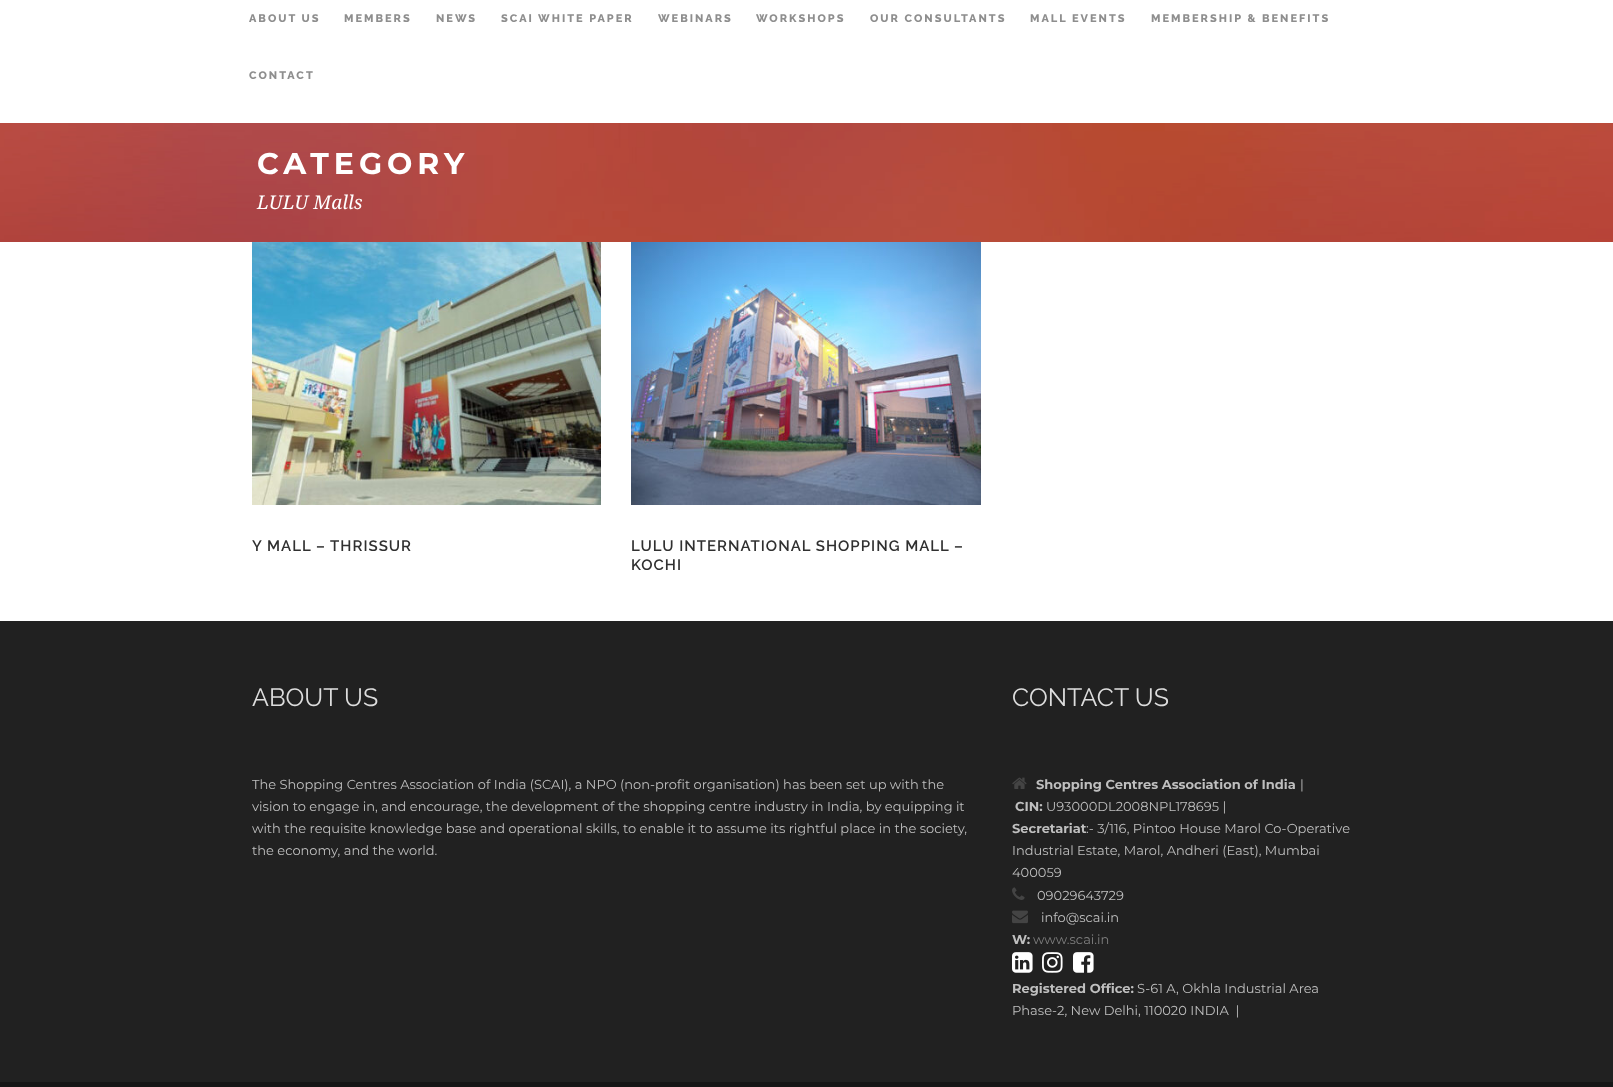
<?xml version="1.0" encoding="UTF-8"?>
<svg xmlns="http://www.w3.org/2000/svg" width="1613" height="1087">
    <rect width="100%" height="100%" fill="#FFFFFF"/>
    <text x="249" y="22" font-family="Raleway" font-size="11" font-weight="800" letter-spacing="2" fill="#8E8E8E">ABOUT US</text>
    <text x="344" y="22" font-family="Raleway" font-size="11" font-weight="800" letter-spacing="2" fill="#8E8E8E">MEMBERS</text>
    <text x="436" y="22" font-family="Raleway" font-size="11" font-weight="800" letter-spacing="2" fill="#8E8E8E">NEWS</text>
    <text x="501" y="22" font-family="Raleway" font-size="11" font-weight="800" letter-spacing="2" fill="#8E8E8E">SCAI WHITE PAPER</text>
    <text x="658" y="22" font-family="Raleway" font-size="11" font-weight="800" letter-spacing="2" fill="#8E8E8E">WEBINARS</text>
    <text x="756" y="22" font-family="Raleway" font-size="11" font-weight="800" letter-spacing="2" fill="#8E8E8E">WORKSHOPS</text>
    <text x="870" y="22" font-family="Raleway" font-size="11" font-weight="800" letter-spacing="2" fill="#8E8E8E">OUR CONSULTANTS</text>
    <text x="1030" y="22" font-family="Raleway" font-size="11" font-weight="800" letter-spacing="2" fill="#8E8E8E">MALL EVENTS</text>
    <text x="1151" y="22" font-family="Raleway" font-size="11" font-weight="800" letter-spacing="2" fill="#8E8E8E">MEMBERSHIP &amp; BENEFITS</text>
    <text x="249" y="79" font-family="Raleway" font-size="11" font-weight="800" letter-spacing="2" fill="#8E8E8E">CONTACT</text>
    <image x="0" y="123" width="1613" height="119" href="img_01.png"/>
    <text x="257" y="174" font-family="Montserrat" font-size="30" font-weight="700" letter-spacing="5" fill="#FFFFFF">CATEGORY</text>
    <text x="257" y="209" font-family="Droid Serif" font-size="19" font-style="italic" fill="#FFFFFF">LULU Malls</text>
    <image x="252" y="242" width="349" height="263" href="img_02.png"/>
    <text x="252" y="551" font-family="Raleway" font-size="15" font-weight="600" letter-spacing="1" fill="#303030">Y MALL – THRISSUR</text>
    <image x="631" y="242" width="350" height="263" href="img_03.png"/>
    <text font-family="Raleway" font-size="15" font-weight="600" letter-spacing="1" fill="#303030">
        <tspan x="631" y="551">LULU INTERNATIONAL SHOPPING MALL –</tspan>
        <tspan x="631" y="570">KOCHI</tspan>
    </text>
    <rect x="0" y="621" width="1613" height="461" fill="#212121"/>
    <text x="252" y="706" font-family="Raleway" font-size="25" fill="#DDDDDD">ABOUT US</text>
    <text font-family="Montserrat" font-size="13" fill="#BFBFBF">
        <tspan x="252" y="789">The Shopping Centres Association of India (SCAI), a NPO (non-profit organisation) has been set up with the</tspan>
        <tspan x="252" y="811">vision to engage in, and encourage, the development of the shopping centre industry in India, by equipping it</tspan>
        <tspan x="252" y="833">with the requisite knowledge base and operational skills, to enable it to assume its rightful place in the society,</tspan>
        <tspan x="252" y="855">the economy, and the world.</tspan>
    </text>
    <text x="1012" y="706" font-family="Raleway" font-size="25" fill="#DDDDDD">CONTACT US</text>
    <image x="1012" y="777" width="15" height="12" href="img_04.png"/>
    <text x="1036" y="789" font-family="Montserrat" font-size="13" font-weight="700" fill="#BFBFBF">Shopping Centres Association of India</text>
    <text x="1300" y="789" font-family="Montserrat" font-size="13" fill="#BFBFBF">|</text>
    <text x="1015" y="811" font-family="Montserrat" font-size="13" font-weight="700" fill="#BFBFBF">CIN:</text>
    <text x="1046" y="811" font-family="Montserrat" font-size="13" fill="#BFBFBF">U93000DL2008NPL178695 |</text>
    <text x="1012" y="833" font-family="Montserrat" font-size="13" font-weight="700" fill="#BFBFBF">Secretariat</text>
    <text x="1086" y="833" font-family="Montserrat" font-size="13" fill="#BFBFBF">:- 3/116, Pintoo House Marol Co-Operative</text>
    <text font-family="Montserrat" font-size="13" fill="#BFBFBF">
        <tspan x="1012" y="855">Industrial Estate, Marol, Andheri (East), Mumbai</tspan>
        <tspan x="1012" y="877">400059</tspan>
    </text>
    <image x="1012" y="887" width="13" height="13" href="img_05.png"/>
    <text x="1037" y="900" font-family="Montserrat" font-size="13" fill="#BFBFBF">09029643729</text>
    <image x="1012" y="910" width="16" height="14" href="img_06.png"/>
    <text x="1041" y="922" font-family="Montserrat" font-size="13" fill="#BFBFBF">info@scai.in</text>
    <text x="1012" y="944" font-family="Montserrat" font-size="13" font-weight="700" fill="#BFBFBF">W:</text>
    <text x="1033" y="944" font-family="Montserrat" font-size="13" fill="#7F7F7F">www.scai.in</text>
    <image x="1012" y="952" width="21" height="21" href="img_07.png"/>
    <image x="1042" y="952" width="21" height="21" href="img_08.png"/>
    <image x="1073" y="952" width="21" height="21" href="img_09.png"/>
    <text x="1012" y="993" font-family="Montserrat" font-size="13" font-weight="700" fill="#BFBFBF">Registered Office:</text>
    <text x="1137" y="993" font-family="Montserrat" font-size="13" fill="#BFBFBF">S-61 A, Okhla Industrial Area</text>
    <text x="1012" y="1015" font-family="Montserrat" font-size="13" fill="#BFBFBF" xml:space="preserve">Phase-2, New Delhi, 110020 INDIA  |</text>
    <rect x="0" y="1082" width="1613" height="5" fill="#161616"/>
</svg>
